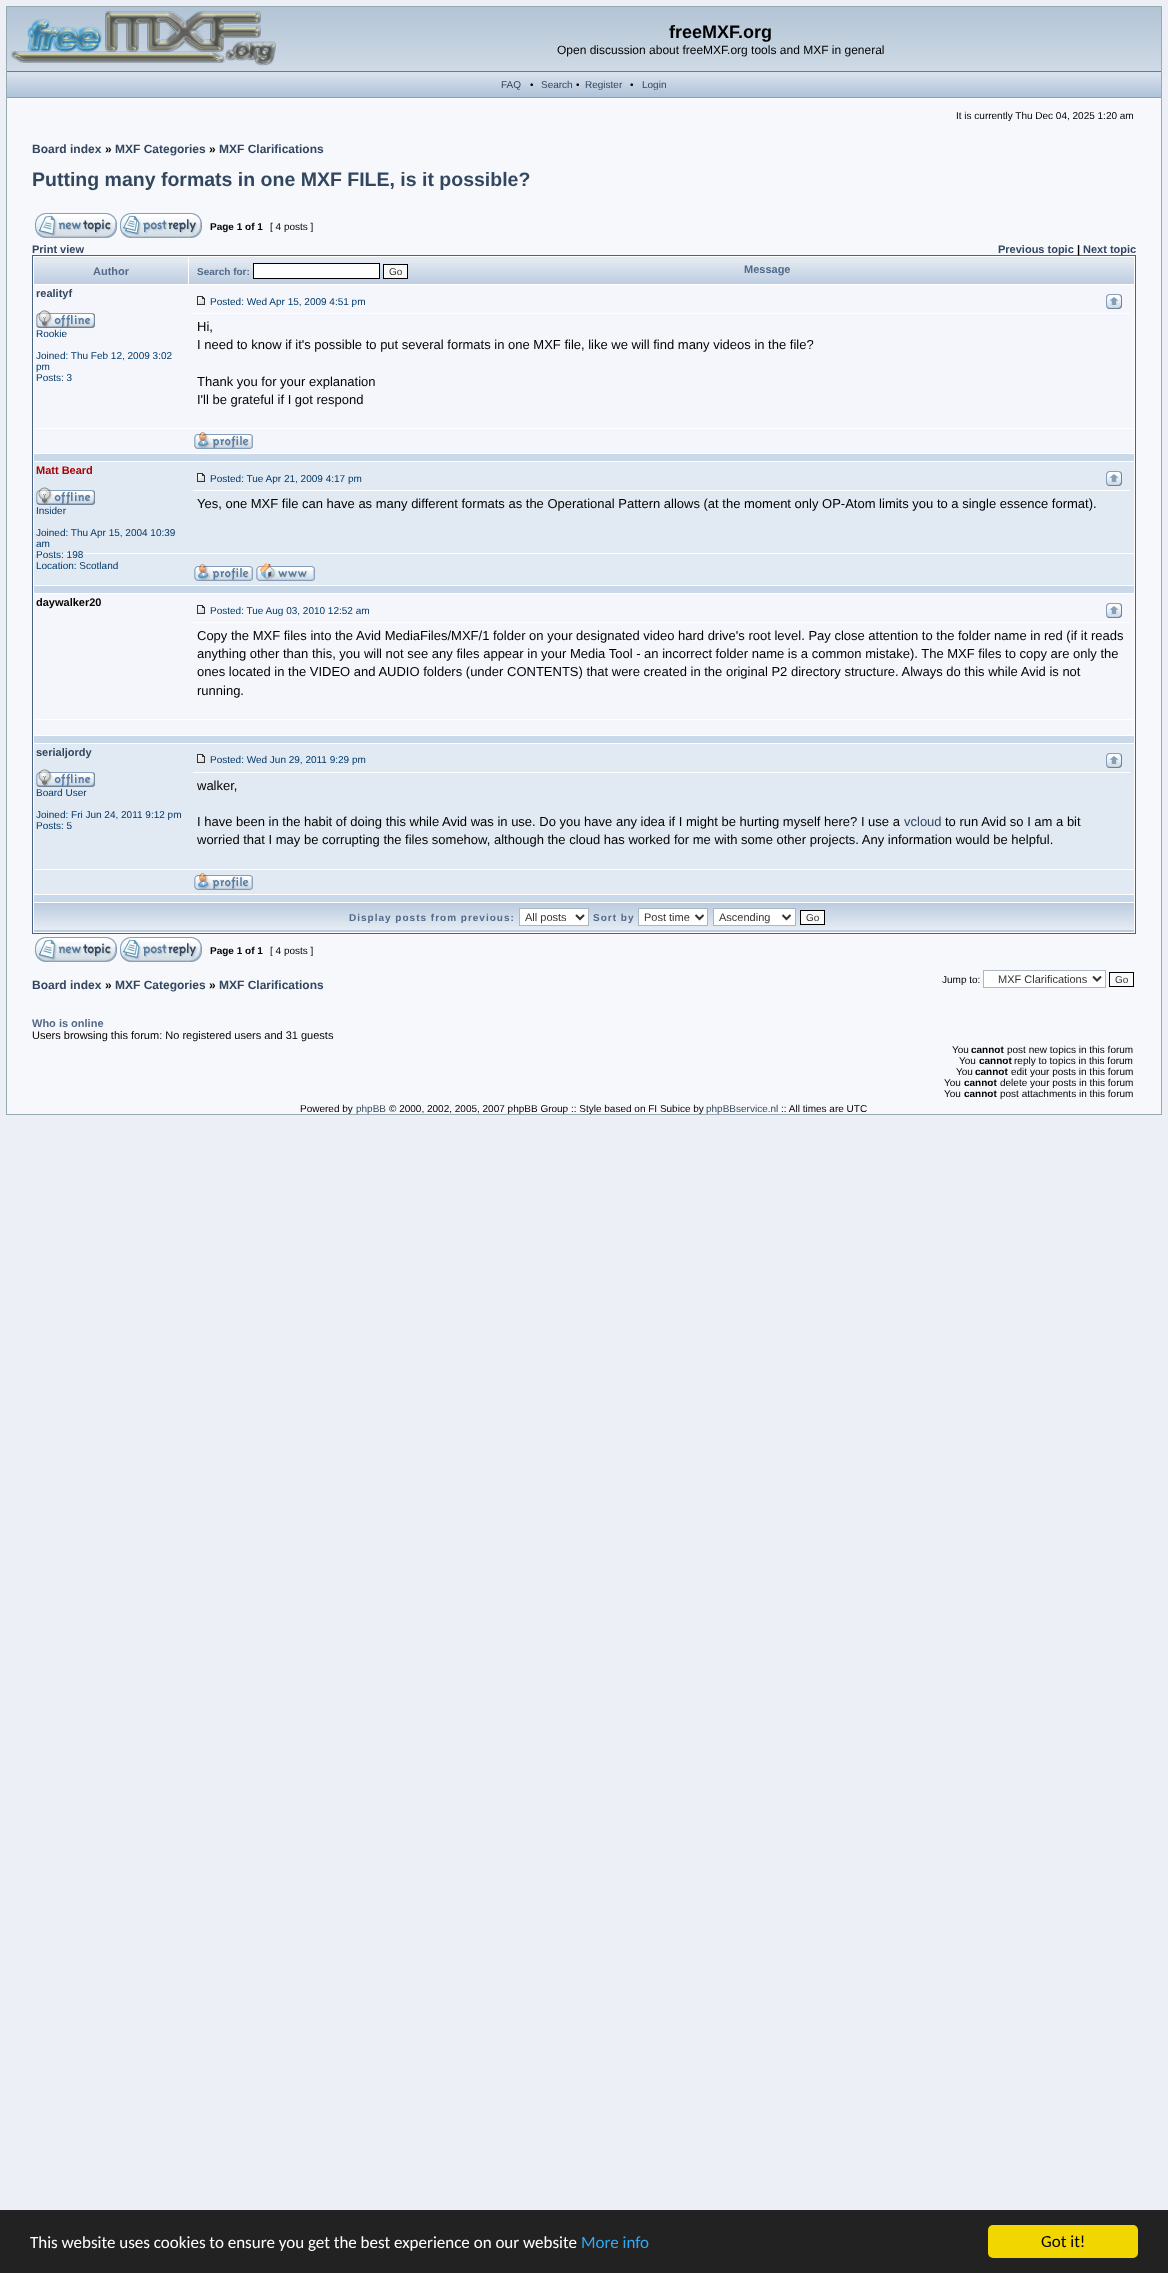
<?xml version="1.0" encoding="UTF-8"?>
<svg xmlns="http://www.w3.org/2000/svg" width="1168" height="2273">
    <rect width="100%" height="100%" fill="#ECF0F6"/>
    <rect x="7" y="98" width="1154" height="1016" fill="#F7F8FC"/>
    <rect x="6.5" y="6.5" width="1155" height="1108" fill="none" stroke="#98AAB1"/>
    <rect x="7" y="71" width="1154" height="1" fill="#4787A7"/>
    <image x="7" y="7" width="1154" height="64" href="img_01.png"/>
    <image x="10" y="11" width="266" height="55" href="img_02.png"/>
    <text x="669" y="38" font-family="Liberation Sans" font-size="18" font-weight="700" fill="#000000">freeMXF.org</text>
    <text x="557" y="54" font-family="Liberation Sans" font-size="12" fill="#000000">Open discussion about freeMXF.org tools and MXF in general</text>
    <image x="7" y="72" width="1154" height="25" href="img_03.png"/>
    <rect x="7" y="97" width="1154" height="1" fill="#91A0AE"/>
    <text x="501" y="88" font-family="Liberation Sans" font-size="10" fill="#32475F">FAQ</text>
    <text x="530" y="88" font-family="Liberation Sans" font-size="10" fill="#000000">•</text>
    <text x="541" y="88" font-family="Liberation Sans" font-size="10" fill="#32475F">Search</text>
    <text x="576" y="88" font-family="Liberation Sans" font-size="10" fill="#000000">•</text>
    <text x="585" y="88" font-family="Liberation Sans" font-size="10" fill="#32475F">Register</text>
    <text x="630" y="88" font-family="Liberation Sans" font-size="10" fill="#000000">•</text>
    <text x="642" y="88" font-family="Liberation Sans" font-size="10" fill="#32475F">Login</text>
    <text x="956" y="119" font-family="Liberation Sans" font-size="10" fill="#000000">It is currently Thu Dec 04, 2025 1:20 am</text>
    <text x="32" y="153" font-family="Liberation Sans" font-size="12" font-weight="700" fill="#32475F">Board index</text>
    <text x="105" y="153" font-family="Liberation Sans" font-size="12" font-weight="700" fill="#000000">»</text>
    <text x="115" y="153" font-family="Liberation Sans" font-size="12" font-weight="700" fill="#32475F">MXF Categories</text>
    <text x="209" y="153" font-family="Liberation Sans" font-size="12" font-weight="700" fill="#000000">»</text>
    <text x="219" y="153" font-family="Liberation Sans" font-size="12" font-weight="700" fill="#32475F">MXF Clarifications</text>
    <text x="32" y="186" font-family="Liberation Sans" font-size="19.5" font-weight="700" fill="#32475F">Putting many formats in one MXF FILE, is it possible?</text>
    <image x="35" y="213" width="82" height="25" href="img_04.png"/>
    <image x="120" y="213" width="82" height="25" href="img_05.png"/>
    <text x="210" y="230" font-family="Liberation Sans" font-size="10" font-weight="700" fill="#000000">Page 1 of 1</text>
    <text x="270" y="230" font-family="Liberation Sans" font-size="10" fill="#000000">[ 4 posts ]</text>
    <text x="32" y="253" font-family="Liberation Sans" font-size="11" font-weight="700" fill="#32475F">Print view</text>
    <rect x="32.5" y="255.5" width="1103" height="678" fill="#FFFFFF" stroke="#486386"/>
    <text x="998" y="253" font-family="Liberation Sans" font-size="11" font-weight="700" fill="#32475F">Previous topic</text>
    <text x="1077" y="253" font-family="Liberation Sans" font-size="11" font-weight="700" fill="#000000">|</text>
    <text x="1083" y="253" font-family="Liberation Sans" font-size="11" font-weight="700" fill="#32475F">Next topic</text>
    <image x="34" y="257" width="154" height="27" href="img_06.png"/>
    <text x="93" y="275" font-family="Liberation Sans" font-size="11" font-weight="700" fill="#516A88">Author</text>
    <image x="189" y="257" width="945" height="27" href="img_07.png"/>
    <text x="197" y="275" font-family="Liberation Sans" font-size="10" font-weight="700" fill="#516A88">Search for:</text>
    <rect x="253.5" y="263.5" width="126" height="15" fill="#FFFFFF" stroke="#000000"/>
    <rect x="383.5" y="264.5" width="24" height="14" fill="#FAFAFA" stroke="#000000"/>
    <text x="389" y="275" font-family="Liberation Sans" font-size="10" fill="#333333">Go</text>
    <text x="744" y="273" font-family="Liberation Sans" font-size="11" font-weight="700" fill="#516A88">Message</text>
    <rect x="34" y="285" width="1100" height="143" fill="#F4F6FB"/>
    <text x="36" y="297" font-family="Liberation Sans" font-size="11" font-weight="700" fill="#32475F">realityf</text>
    <image x="36" y="310" width="59" height="18" href="img_08.png"/>
    <text x="36" y="337" font-family="Liberation Sans" font-size="10" fill="#00396A">Rookie</text>
    <text font-family="Liberation Sans" font-size="10" fill="#00396A">
        <tspan x="36" y="359">Joined: Thu Feb 12, 2009 3:02</tspan>
        <tspan x="36" y="370">pm</tspan>
        <tspan x="36" y="381">Posts: 3</tspan>
    </text>
    <rect x="193" y="313" width="937" height="1" fill="#FFFFFF"/>
    <image x="197" y="296" width="8" height="9" href="img_09.png"/>
    <text x="210" y="305" font-family="Liberation Sans" font-size="10" fill="#00396A">Posted: Wed Apr 15, 2009 4:51 pm</text>
    <image x="1106" y="294" width="16" height="15" href="img_10.png"/>
    <text font-family="Liberation Sans" font-size="13" fill="#000000">
        <tspan x="197" y="331">Hi,</tspan>
        <tspan x="197" y="349">I need to know if it's possible to put several formats in one MXF file, like we will find many videos in the file?</tspan>
    </text>
    <text font-family="Liberation Sans" font-size="13" fill="#000000">
        <tspan x="197" y="386">Thank you for your explanation</tspan>
        <tspan x="197" y="404">I'll be grateful if I got respond</tspan>
    </text>
    <rect x="34" y="429" width="1100" height="24" fill="#F4F6FB"/>
    <image x="194" y="432" width="59" height="17" href="img_11.png"/>
    <rect x="34" y="454" width="1100" height="7" fill="#CAD9EA"/>
    <rect x="34" y="462" width="1100" height="91" fill="#E1E9F2"/>
    <text x="36" y="474" font-family="Liberation Sans" font-size="11" font-weight="700" fill="#AA0000">Matt Beard</text>
    <image x="36" y="487" width="59" height="18" href="img_12.png"/>
    <text x="36" y="514" font-family="Liberation Sans" font-size="10" fill="#00396A">Insider</text>
    <text font-family="Liberation Sans" font-size="10" fill="#00396A">
        <tspan x="36" y="536">Joined: Thu Apr 15, 2004 10:39</tspan>
        <tspan x="36" y="547">am</tspan>
    </text>
    <rect x="34" y="554" width="1100" height="31" fill="#E1E9F2"/>
    <text font-family="Liberation Sans" font-size="10" fill="#00396A">
        <tspan x="36" y="558">Posts: 198</tspan>
        <tspan x="36" y="569">Location: Scotland</tspan>
    </text>
    <rect x="193" y="490" width="937" height="1" fill="#FFFFFF"/>
    <image x="197" y="473" width="8" height="9" href="img_13.png"/>
    <text x="210" y="482" font-family="Liberation Sans" font-size="10" fill="#00396A">Posted: Tue Apr 21, 2009 4:17 pm</text>
    <image x="1106" y="471" width="16" height="15" href="img_14.png"/>
    <text x="197" y="508" font-family="Liberation Sans" font-size="13" fill="#000000">Yes, one MXF file can have as many different formats as the Operational Pattern allows (at the moment only OP-Atom limits you to a single essence format).</text>
    <image x="194" y="564" width="59" height="17" href="img_15.png"/>
    <image x="256" y="563" width="59" height="18" href="img_16.png"/>
    <rect x="34" y="586" width="1100" height="7" fill="#CAD9EA"/>
    <rect x="34" y="594" width="1100" height="125" fill="#F4F6FB"/>
    <text x="36" y="606" font-family="Liberation Sans" font-size="11" font-weight="700" fill="#000000">daywalker20</text>
    <rect x="193" y="622" width="937" height="1" fill="#FFFFFF"/>
    <image x="197" y="605" width="8" height="9" href="img_09.png"/>
    <text x="210" y="614" font-family="Liberation Sans" font-size="10" fill="#00396A">Posted: Tue Aug 03, 2010 12:52 am</text>
    <image x="1106" y="603" width="16" height="15" href="img_10.png"/>
    <text font-family="Liberation Sans" font-size="13" fill="#000000">
        <tspan x="197" y="640">Copy the MXF files into the Avid MediaFiles/MXF/1 folder on your designated video hard drive's root level. Pay close attention to the folder name in red (if it reads</tspan>
        <tspan x="197" y="658">anything other than this, you will not see any files appear in your Media Tool - an incorrect folder name is a common mistake). The MXF files to copy are only the</tspan>
        <tspan x="197" y="676">ones located in the VIDEO and AUDIO folders (under CONTENTS) that were created in the original P2 directory structure. Always do this while Avid is not</tspan>
        <tspan x="197" y="695">running.</tspan>
    </text>
    <rect x="34" y="720" width="1100" height="15" fill="#F4F6FB"/>
    <rect x="34" y="736" width="1100" height="7" fill="#CAD9EA"/>
    <rect x="34" y="744" width="1100" height="125" fill="#E1E9F2"/>
    <text x="36" y="756" font-family="Liberation Sans" font-size="11" font-weight="700" fill="#32475F">serialjordy</text>
    <image x="36" y="769" width="59" height="18" href="img_12.png"/>
    <text x="36" y="796" font-family="Liberation Sans" font-size="10" fill="#00396A">Board User</text>
    <text font-family="Liberation Sans" font-size="10" fill="#00396A">
        <tspan x="36" y="818">Joined: Fri Jun 24, 2011 9:12 pm</tspan>
        <tspan x="36" y="829">Posts: 5</tspan>
    </text>
    <rect x="193" y="772" width="937" height="1" fill="#FFFFFF"/>
    <image x="197" y="754" width="8" height="9" href="img_13.png"/>
    <text x="210" y="763" font-family="Liberation Sans" font-size="10" fill="#00396A">Posted: Wed Jun 29, 2011 9:29 pm</text>
    <image x="1106" y="753" width="16" height="15" href="img_14.png"/>
    <text x="197" y="790" font-family="Liberation Sans" font-size="13" fill="#000000">walker,</text>
    <text x="197" y="826" font-family="Liberation Sans" font-size="13" fill="#000000">I have been in the habit of doing this while Avid was in use. Do you have any idea if I might be hurting myself here? I use a</text>
    <text x="904" y="826" font-family="Liberation Sans" font-size="13" fill="#32475F">vcloud</text>
    <text x="945" y="826" font-family="Liberation Sans" font-size="13" fill="#000000">to run Avid so I am a bit</text>
    <text x="197" y="844" font-family="Liberation Sans" font-size="13" fill="#000000">worried that I may be corrupting the files somehow, although the cloud has worked for me with some other projects. Any information would be helpful.</text>
    <rect x="34" y="870" width="1100" height="24" fill="#E1E9F2"/>
    <image x="194" y="873" width="59" height="17" href="img_15.png"/>
    <rect x="34" y="895" width="1100" height="7" fill="#CAD9EA"/>
    <image x="34" y="903" width="1100" height="29" href="img_17.png"/>
    <text x="349" y="921" font-family="Liberation Sans" font-size="10" font-weight="700" letter-spacing="1" fill="#516A88">Display posts from previous:</text>
    <rect x="519.5" y="908.5" width="69" height="17" fill="#FFFFFF" stroke="#A9B8C2"/>
    <path d="M 576 915 L 580 919 L 584 915" fill="none" stroke="#333333" stroke-width="2"/>
    <text x="525" y="921" font-family="Liberation Sans" font-size="11" fill="#333333">All posts</text>
    <text x="593" y="921" font-family="Liberation Sans" font-size="10" font-weight="700" letter-spacing="1" fill="#516A88">Sort by</text>
    <rect x="638.5" y="908.5" width="69" height="17" fill="#FFFFFF" stroke="#A9B8C2"/>
    <path d="M 695.5 915 L 699.5 919 L 703.5 915" fill="none" stroke="#333333" stroke-width="2"/>
    <text x="644" y="921" font-family="Liberation Sans" font-size="11" fill="#333333">Post time</text>
    <rect x="713.5" y="908.5" width="82" height="17" fill="#FFFFFF" stroke="#A9B8C2"/>
    <path d="M 782.5 915 L 786.5 919 L 790.5 915" fill="none" stroke="#333333" stroke-width="2"/>
    <text x="719" y="921" font-family="Liberation Sans" font-size="11" fill="#333333">Ascending</text>
    <rect x="800.5" y="910.5" width="24" height="14" fill="#FAFAFA" stroke="#000000"/>
    <text x="806" y="921" font-family="Liberation Sans" font-size="10" fill="#333333">Go</text>
    <image x="35" y="937" width="82" height="25" href="img_04.png"/>
    <image x="120" y="937" width="82" height="25" href="img_05.png"/>
    <text x="210" y="954" font-family="Liberation Sans" font-size="10" font-weight="700" fill="#000000">Page 1 of 1</text>
    <text x="270" y="954" font-family="Liberation Sans" font-size="10" fill="#000000">[ 4 posts ]</text>
    <text x="32" y="989" font-family="Liberation Sans" font-size="12" font-weight="700" fill="#32475F">Board index</text>
    <text x="105" y="989" font-family="Liberation Sans" font-size="12" font-weight="700" fill="#000000">»</text>
    <text x="115" y="989" font-family="Liberation Sans" font-size="12" font-weight="700" fill="#32475F">MXF Categories</text>
    <text x="209" y="989" font-family="Liberation Sans" font-size="12" font-weight="700" fill="#000000">»</text>
    <text x="219" y="989" font-family="Liberation Sans" font-size="12" font-weight="700" fill="#32475F">MXF Clarifications</text>
    <text x="942" y="983" font-family="Liberation Sans" font-size="10" fill="#000000">Jump to:</text>
    <rect x="983.5" y="970.5" width="122" height="17" fill="#FFFFFF" stroke="#A9B8C2"/>
    <path d="M 1093 976.5 L 1097 980.5 L 1101 976.5" fill="none" stroke="#333333" stroke-width="2"/>
    <text x="998" y="983" font-family="Liberation Sans" font-size="11" fill="#333333">MXF Clarifications</text>
    <rect x="1109.5" y="972.5" width="24" height="14" fill="#FAFAFA" stroke="#000000"/>
    <text x="1115" y="983" font-family="Liberation Sans" font-size="10" fill="#333333">Go</text>
    <text x="32" y="1027" font-family="Liberation Sans" font-size="11" font-weight="700" fill="#516A88">Who is online</text>
    <text x="32" y="1039" font-family="Liberation Sans" font-size="11" fill="#000000">Users browsing this forum: No registered users and 31 guests</text>
    <text x="952" y="1053" font-family="Liberation Sans" font-size="10" fill="#000000">You</text>
    <text x="971" y="1053" font-family="Liberation Sans" font-size="10" font-weight="700" fill="#000000">cannot</text>
    <text x="1007" y="1053" font-family="Liberation Sans" font-size="10" fill="#000000">post new topics in this forum</text>
    <text x="959" y="1064" font-family="Liberation Sans" font-size="10" fill="#000000">You</text>
    <text x="979" y="1064" font-family="Liberation Sans" font-size="10" font-weight="700" fill="#000000">cannot</text>
    <text x="1014" y="1064" font-family="Liberation Sans" font-size="10" fill="#000000">reply to topics in this forum</text>
    <text x="956" y="1075" font-family="Liberation Sans" font-size="10" fill="#000000">You</text>
    <text x="975" y="1075" font-family="Liberation Sans" font-size="10" font-weight="700" fill="#000000">cannot</text>
    <text x="1011" y="1075" font-family="Liberation Sans" font-size="10" fill="#000000">edit your posts in this forum</text>
    <text x="944" y="1086" font-family="Liberation Sans" font-size="10" fill="#000000">You</text>
    <text x="964" y="1086" font-family="Liberation Sans" font-size="10" font-weight="700" fill="#000000">cannot</text>
    <text x="1000" y="1086" font-family="Liberation Sans" font-size="10" fill="#000000">delete your posts in this forum</text>
    <text x="944" y="1097" font-family="Liberation Sans" font-size="10" fill="#000000">You</text>
    <text x="964" y="1097" font-family="Liberation Sans" font-size="10" font-weight="700" fill="#000000">cannot</text>
    <text x="1000" y="1097" font-family="Liberation Sans" font-size="10" fill="#000000">post attachments in this forum</text>
    <text x="300" y="1112" font-family="Liberation Sans" font-size="10" fill="#000000">Powered by</text>
    <text x="356" y="1112" font-family="Liberation Sans" font-size="10" fill="#32475F">phpBB</text>
    <text x="389" y="1112" font-family="Liberation Sans" font-size="10" fill="#000000">© 2000, 2002, 2005, 2007 phpBB Group :: Style based on FI Subice by</text>
    <text x="706" y="1112" font-family="Liberation Sans" font-size="10" fill="#32475F">phpBBservice.nl</text>
    <text x="781" y="1112" font-family="Liberation Sans" font-size="10" fill="#000000">:: All times are UTC</text>
    <rect x="0" y="2210" width="1168" height="63" fill="#222222"/>
    <text x="30" y="2248" font-family="Carlito" font-size="17" fill="#FFFFFF">This website uses cookies to ensure you get the best experience on our website</text>
    <text x="581" y="2248" font-family="Carlito" font-size="17" fill="#31A8F0">More info</text>
    <rect x="988" y="2225" width="150" height="33" rx="5" fill="#F1D600"/>
    <text x="1041" y="2247" font-family="Carlito" font-size="17" fill="#000000">Got it!</text>
</svg>
